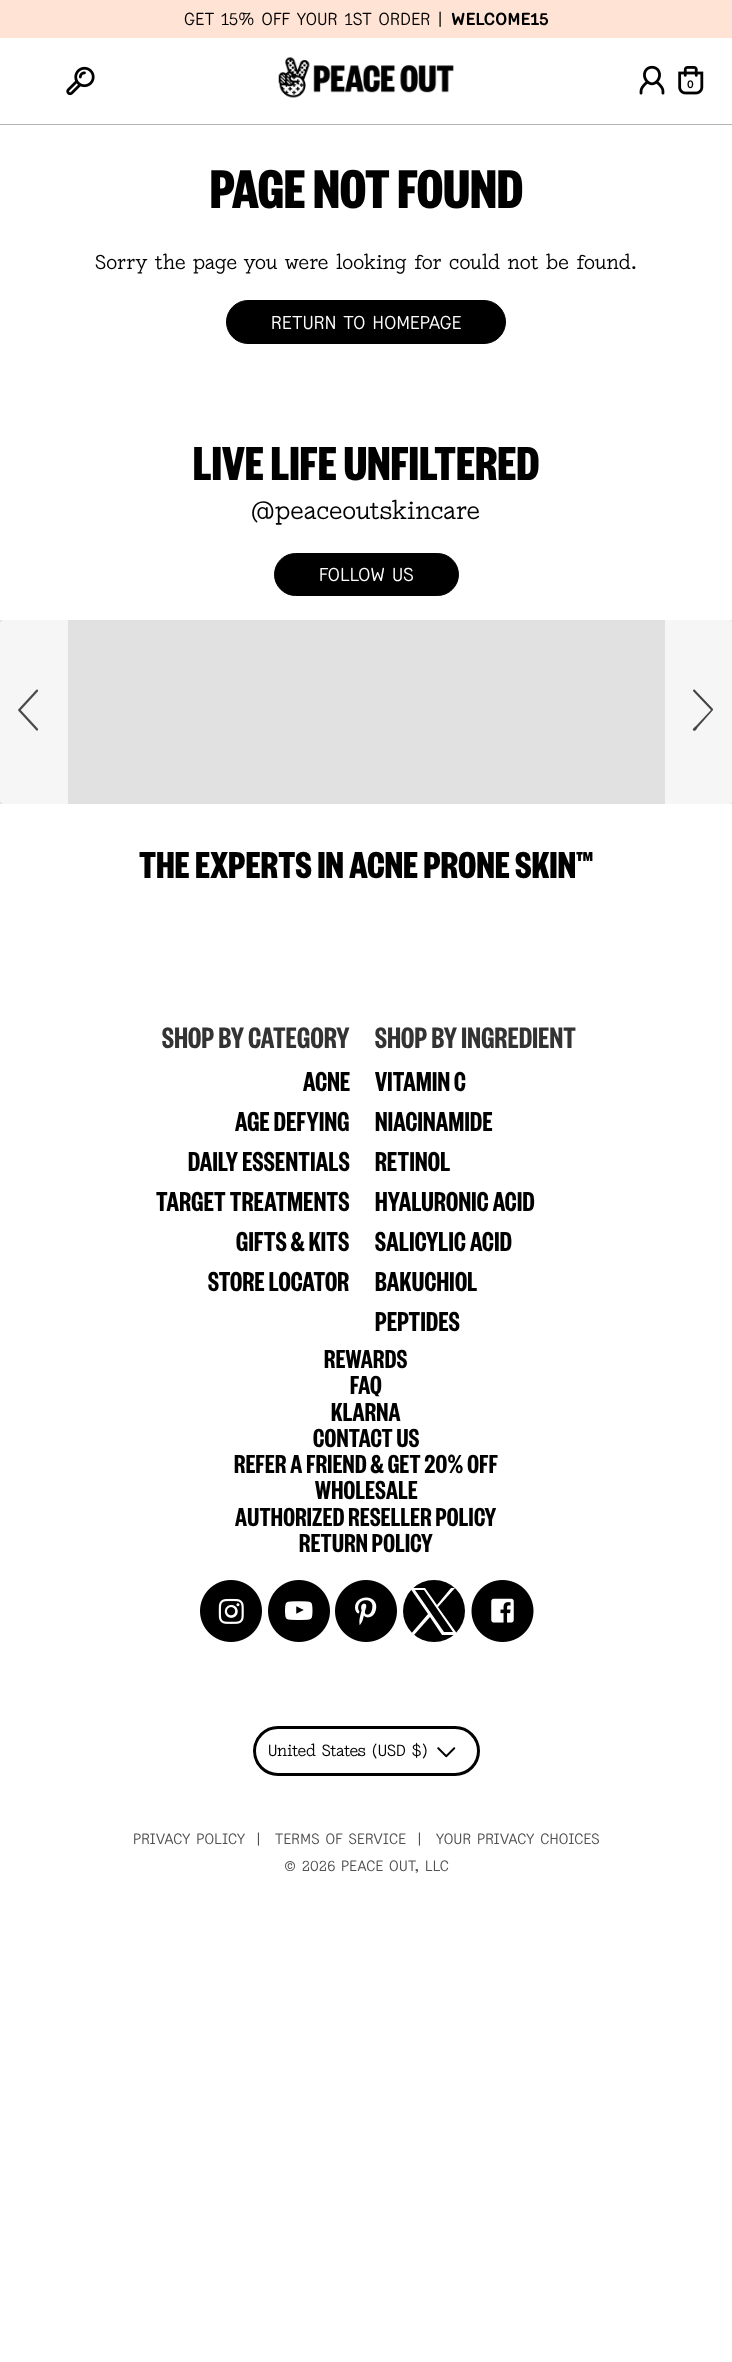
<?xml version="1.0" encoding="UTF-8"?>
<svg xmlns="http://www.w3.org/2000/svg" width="732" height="2362">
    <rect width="100%" height="100%" fill="#FFFFFF"/>
    <rect x="0" y="0" width="732" height="38" fill="#FFE3D4"/>
    <text x="184" y="25" font-family="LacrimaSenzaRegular" font-size="17.5" letter-spacing="0.3" fill="#000000">GET 15% OFF YOUR 1ST ORDER |</text>
    <text x="451" y="25" font-family="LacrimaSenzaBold" font-size="17.5" font-weight="700" letter-spacing="0.3" fill="#000000">WELCOME15</text>
    <rect x="0" y="124" width="732" height="1" fill="#B4B4B4"/>
    <image x="66" y="66" width="29" height="30" href="img_01.png"/>
    <image x="278" y="57" width="176" height="41" href="img_02.png"/>
    <image x="639" y="65" width="26" height="30" href="img_03.png"/>
    <image x="678" y="66" width="26" height="29" href="img_04.png"/>
    <text x="687" y="88" font-family="LacrimaSenzaBold" font-size="11" font-weight="700" letter-spacing="0.3" fill="#000000">0</text>
    <text x="210" y="208" font-family="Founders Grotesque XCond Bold" font-size="60" font-weight="700" letter-spacing="0.3" fill="#000000">PAGE NOT FOUND</text>
    <text x="95" y="269" font-family="LacrimaSenzaRegular" font-size="20" letter-spacing="0.3" fill="#000000">Sorry the page you were looking for could not be found.</text>
    <rect x="226.5" y="300.5" width="279" height="43" rx="21.5" fill="#000000" stroke="#000000"/>
    <text x="271" y="329" font-family="LacrimaSenzaRegular" font-size="18.75" letter-spacing="0.3" fill="#FFFFFF">RETURN TO HOMEPAGE</text>
    <text x="193" y="480" font-family="Founders Grotesque XCond Bold" font-size="52.5" font-weight="700" letter-spacing="0.3" fill="#000000">LIVE LIFE UNFILTERED</text>
    <text x="251" y="519" font-family="LacrimaSenzaRegular" font-size="25" letter-spacing="0.3" fill="#000000">@peaceoutskincare</text>
    <rect x="274.5" y="553.5" width="184" height="42" rx="21" fill="#000000" stroke="#000000"/>
    <text x="319" y="581" font-family="LacrimaSenzaRegular" font-size="18.75" letter-spacing="0.3" fill="#FFFFFF">FOLLOW US</text>
    <rect x="0" y="620" width="732" height="184" fill="#E1E1E1"/>
    <path d="M 4 620 H 68 V 804 H 4 C 2 804 0 802 0 800 V 624 C 0 622 2 620 4 620 Z" fill="#F6F6F6"/>
    <image x="18" y="689" width="21" height="42" href="img_05.png"/>
    <path d="M 665 620 H 729 C 731 620 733 622 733 624 V 800 C 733 802 731 804 729 804 H 665 Z" fill="#F6F6F6"/>
    <path d="M 713 709 L 695 690 C 694 689 693 690 693 691 L 711 710 L 696 726 C 696 726 692 729 693 730 L 694 731 C 696 731 697 728 698 727 L 713 710 Z" fill="#444444"/>
    <text x="139" y="878" font-family="Founders Grotesque XCond Bold" font-size="41.25" font-weight="700" letter-spacing="0.3" fill="#000000">THE EXPERTS IN ACNE PRONE SKIN™</text>
    <text x="162" y="1048" font-family="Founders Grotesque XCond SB" font-size="32.5" font-weight="600" letter-spacing="0.3" fill="#333333">SHOP BY CATEGORY</text>
    <text x="303" y="1091" font-family="Founders Grotesque XCond SB" font-size="30" font-weight="600" letter-spacing="0.3" fill="#000000">ACNE</text>
    <text x="235" y="1131" font-family="Founders Grotesque XCond SB" font-size="30" font-weight="600" letter-spacing="0.3" fill="#000000">AGE DEFYING</text>
    <text x="188" y="1171" font-family="Founders Grotesque XCond SB" font-size="30" font-weight="600" letter-spacing="0.3" fill="#000000">DAILY ESSENTIALS</text>
    <text x="156" y="1211" font-family="Founders Grotesque XCond SB" font-size="30" font-weight="600" letter-spacing="0.3" fill="#000000">TARGET TREATMENTS</text>
    <text x="236" y="1251" font-family="Founders Grotesque XCond SB" font-size="30" font-weight="600" letter-spacing="0.3" fill="#000000">GIFTS &amp; KITS</text>
    <text x="208" y="1291" font-family="Founders Grotesque XCond SB" font-size="30" font-weight="600" letter-spacing="0.3" fill="#000000">STORE LOCATOR</text>
    <text x="375" y="1048" font-family="Founders Grotesque XCond SB" font-size="32.5" font-weight="600" letter-spacing="0.3" fill="#333333">SHOP BY INGREDIENT</text>
    <text font-family="Founders Grotesque XCond SB" font-size="30" font-weight="600" letter-spacing="0.3" fill="#000000">
        <tspan x="375" y="1091">VITAMIN C</tspan>
        <tspan x="375" y="1131">NIACINAMIDE</tspan>
        <tspan x="375" y="1171">RETINOL</tspan>
        <tspan x="375" y="1211">HYALURONIC ACID</tspan>
        <tspan x="375" y="1251">SALICYLIC ACID</tspan>
        <tspan x="375" y="1291">BAKUCHIOL</tspan>
        <tspan x="375" y="1331">PEPTIDES</tspan>
    </text>
    <text x="324" y="1368" font-family="Founders Grotesque XCond SB" font-size="28.75" font-weight="600" letter-spacing="0.3" fill="#000000">REWARDS</text>
    <text x="350" y="1394" font-family="Founders Grotesque XCond SB" font-size="28.75" font-weight="600" letter-spacing="0.3" fill="#000000">FAQ</text>
    <text x="331" y="1421" font-family="Founders Grotesque XCond SB" font-size="28.75" font-weight="600" letter-spacing="0.3" fill="#000000">KLARNA</text>
    <text x="313" y="1447" font-family="Founders Grotesque XCond SB" font-size="28.75" font-weight="600" letter-spacing="0.3" fill="#000000">CONTACT US</text>
    <text x="234" y="1473" font-family="Founders Grotesque XCond SB" font-size="28.75" font-weight="600" letter-spacing="0.3" fill="#000000">REFER A FRIEND &amp; GET 20% OFF</text>
    <text x="315" y="1499" font-family="Founders Grotesque XCond SB" font-size="28.75" font-weight="600" letter-spacing="0.3" fill="#000000">WHOLESALE</text>
    <text x="235" y="1526" font-family="Founders Grotesque XCond SB" font-size="28.75" font-weight="600" letter-spacing="0.3" fill="#000000">AUTHORIZED RESELLER POLICY</text>
    <text x="299" y="1552" font-family="Founders Grotesque XCond SB" font-size="28.75" font-weight="600" letter-spacing="0.3" fill="#000000">RETURN POLICY</text>
    <image x="200" y="1580" width="62" height="62" href="img_06.png"/>
    <image x="268" y="1580" width="62" height="62" href="img_07.png"/>
    <image x="335" y="1580" width="62" height="62" href="img_08.png"/>
    <circle cx="434" cy="1611" r="31" fill="#000000"/>
    <path d="M 410 1588 L 428 1614 L 410 1635 H 414 L 430 1617 L 442 1635 H 458 L 438 1607 L 455 1588 H 451 L 437 1605 L 425 1588 Z M 415 1590 H 424 L 453 1632 H 444 Z" fill="#FFFFFF"/>
    <image x="471" y="1580" width="63" height="62" href="img_09.png"/>
    <rect x="254.5" y="1727.5" width="224" height="47" rx="23.5" fill="none" stroke="#000000" stroke-width="3"/>
    <text x="268" y="1756" font-family="LacrimaSenzaRegular" font-size="16.25" fill="#000000">United States (USD $)</text>
    <image x="437" y="1747" width="19" height="11" href="img_10.png"/>
    <text x="133" y="1844" font-family="LacrimaSenzaRegular" font-size="15" letter-spacing="0.3" fill="#505050">PRIVACY POLICY</text>
    <text x="256" y="1844" font-family="LacrimaSenzaRegular" font-size="15" letter-spacing="0.3" fill="#505050">|</text>
    <text x="275" y="1844" font-family="LacrimaSenzaRegular" font-size="15" letter-spacing="0.3" fill="#505050">TERMS OF SERVICE</text>
    <text x="417" y="1844" font-family="LacrimaSenzaRegular" font-size="15" letter-spacing="0.3" fill="#505050">|</text>
    <text x="436" y="1844" font-family="LacrimaSenzaRegular" font-size="15" letter-spacing="0.3" fill="#505050">YOUR PRIVACY CHOICES</text>
    <text x="284" y="1871" font-family="LacrimaSenzaRegular" font-size="15" letter-spacing="0.3" fill="#505050">© 2026 PEACE OUT, LLC</text>
</svg>
